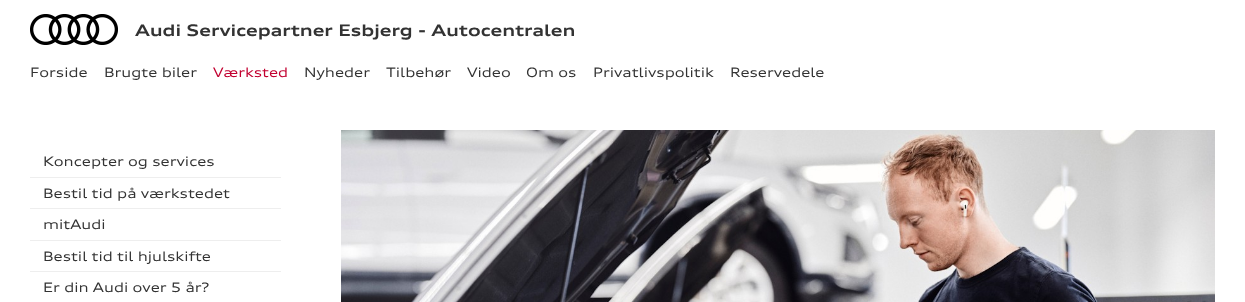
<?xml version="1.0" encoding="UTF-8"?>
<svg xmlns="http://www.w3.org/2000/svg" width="1245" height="302">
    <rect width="100%" height="100%" fill="#FFFFFF"/>
    <image x="30" y="14" width="88" height="31" href="img_01.png"/>
    <text x="135" y="36" font-family="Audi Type" font-size="16" font-weight="700" fill="#333333">Audi Servicepartner Esbjerg - Autocentralen</text>
    <text x="43" y="166" font-family="Audi Type" font-size="13" fill="#333333">Koncepter og services</text>
    <rect x="30" y="177" width="251" height="1" fill="#EEEEEE"/>
    <text x="43" y="198" font-family="Audi Type" font-size="13" fill="#333333">Bestil tid på værkstedet</text>
    <rect x="30" y="208" width="251" height="1" fill="#EEEEEE"/>
    <text x="43" y="229" font-family="Audi Type" font-size="13" fill="#333333">mitAudi</text>
    <rect x="30" y="240" width="251" height="1" fill="#EEEEEE"/>
    <text x="43" y="261" font-family="Audi Type" font-size="13" fill="#333333">Bestil tid til hjulskifte</text>
    <rect x="30" y="271" width="251" height="1" fill="#EEEEEE"/>
    <text x="43" y="292" font-family="Audi Type" font-size="13" fill="#333333">Er din Audi over 5 år?</text>
    <image x="341" y="130" width="874" height="172" href="img_02.png"/>
    <text x="30" y="77" font-family="Audi Type" font-size="13" fill="#333333">Forside</text>
    <text x="104" y="77" font-family="Audi Type" font-size="13" fill="#333333">Brugte biler</text>
    <text x="213" y="77" font-family="Audi Type" font-size="13" fill="#C20030">Værksted</text>
    <text x="304" y="77" font-family="Audi Type" font-size="13" fill="#333333">Nyheder</text>
    <text x="386" y="77" font-family="Audi Type" font-size="13" fill="#333333">Tilbehør</text>
    <text x="467" y="77" font-family="Audi Type" font-size="13" fill="#333333">Video</text>
    <text x="526" y="77" font-family="Audi Type" font-size="13" fill="#333333">Om os</text>
    <text x="593" y="77" font-family="Audi Type" font-size="13" fill="#333333">Privatlivspolitik</text>
    <text x="730" y="77" font-family="Audi Type" font-size="13" fill="#333333">Reservedele</text>
</svg>
